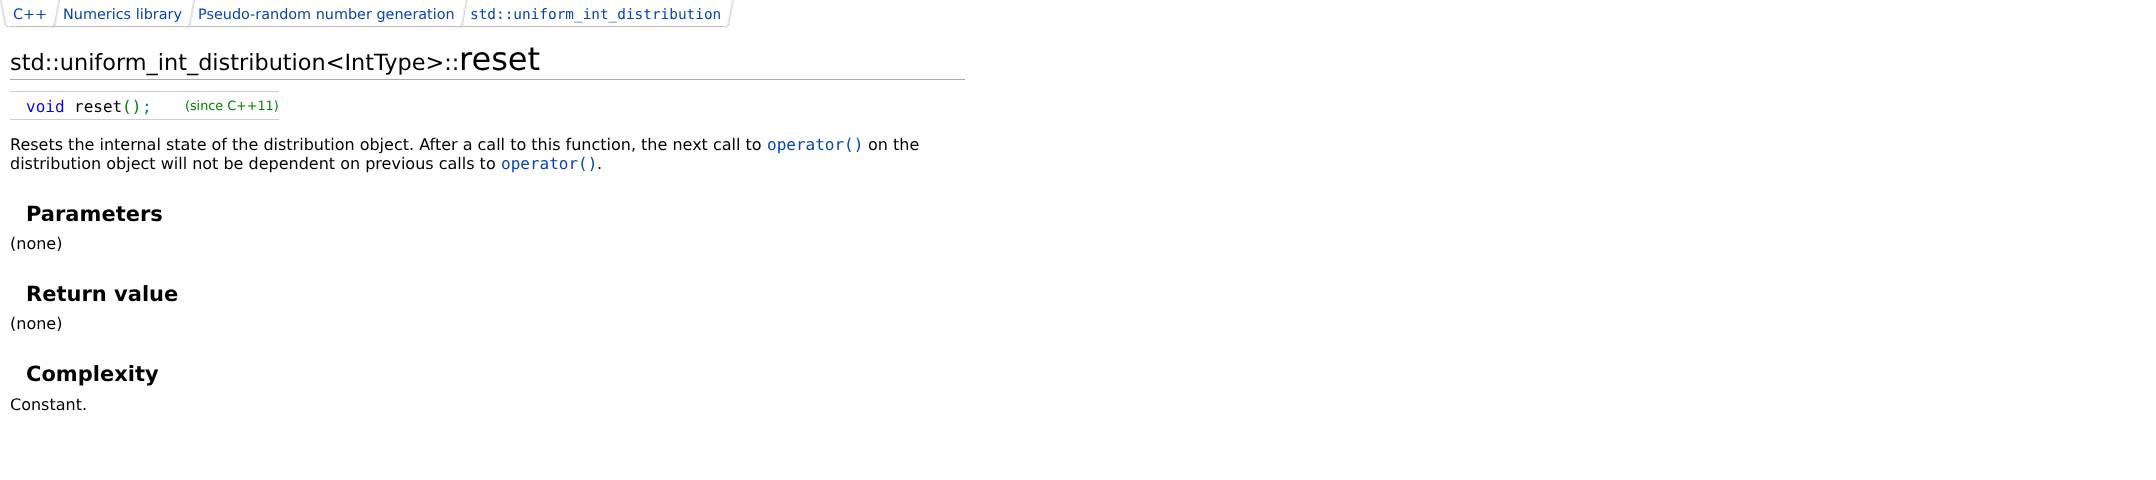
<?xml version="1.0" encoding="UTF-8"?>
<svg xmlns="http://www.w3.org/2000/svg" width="2156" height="480">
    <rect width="100%" height="100%" fill="#FFFFFF"/>
    <image x="0" y="0" width="10" height="28" href="img_01.png"/>
    <rect x="10" y="26" width="40" height="1" fill="#C0C0C0"/>
    <text x="13" y="19" font-family="DejaVu Sans" font-size="14.4" fill="#0645AD">C++</text>
    <image x="50" y="0" width="10" height="28" href="img_02.png"/>
    <rect x="50" y="26" width="135" height="1" fill="#C0C0C0"/>
    <image x="185" y="0" width="10" height="28" href="img_02.png"/>
    <rect x="185" y="26" width="273" height="1" fill="#C0C0C0"/>
    <image x="457" y="0" width="11" height="28" href="img_03.png"/>
    <rect x="458" y="26" width="266" height="1" fill="#C0C0C0"/>
    <image x="724" y="0" width="10" height="28" href="img_04.png"/>
    <text x="63" y="19" font-family="DejaVu Sans" font-size="14.4" fill="#0645AD">Numerics library</text>
    <text x="198" y="19" font-family="DejaVu Sans" font-size="14.4" fill="#0645AD">Pseudo-random number generation</text>
    <text x="470" y="19" font-family="DejaVu Sans Mono" font-size="14.4" fill="#0645AD">std::uniform_int_distribution</text>
    <rect x="10" y="91" width="269" height="1" fill="#CCCCCC"/>
    <text x="26" y="112" font-family="DejaVu Sans Mono" font-size="16" fill="#0000FF">void</text>
    <text x="74" y="112" font-family="DejaVu Sans Mono" font-size="16" fill="#000000">reset</text>
    <text x="122" y="112" font-family="DejaVu Sans Mono" font-size="16" fill="#008000">()</text>
    <text x="142" y="112" font-family="DejaVu Sans Mono" font-size="16" fill="#008080">;</text>
    <text x="185" y="110" font-family="DejaVu Sans" font-size="12.75" fill="#008000">(since C++11)</text>
    <rect x="10" y="119" width="269" height="1" fill="#CCCCCC"/>
    <text x="10" y="150" font-family="DejaVu Sans" font-size="16" fill="#000000">Resets the internal state of the distribution object. After a call to this function, the next call to</text>
    <text x="767" y="150" font-family="DejaVu Sans Mono" font-size="16" fill="#0645AD">operator()</text>
    <text x="868" y="150" font-family="DejaVu Sans" font-size="16" fill="#000000">on the</text>
    <text x="10" y="169" font-family="DejaVu Sans" font-size="16" fill="#000000">distribution object will not be dependent on previous calls to</text>
    <text x="501" y="169" font-family="DejaVu Sans Mono" font-size="16" fill="#0645AD">operator()</text>
    <text x="597" y="169" font-family="DejaVu Sans" font-size="16" fill="#000000">.</text>
    <text x="26" y="221" font-family="DejaVu Sans" font-size="21" font-weight="700" fill="#000000">Parameters</text>
    <text x="10" y="249" font-family="DejaVu Sans" font-size="16" fill="#000000">(none)</text>
    <text x="26" y="301" font-family="DejaVu Sans" font-size="21" font-weight="700" fill="#000000">Return value</text>
    <text x="10" y="329" font-family="DejaVu Sans" font-size="16" fill="#000000">(none)</text>
    <text x="26" y="381" font-family="DejaVu Sans" font-size="21" font-weight="700" fill="#000000">Complexity</text>
    <text x="10" y="410" font-family="DejaVu Sans" font-size="16" fill="#000000">Constant.</text>
    <rect x="10" y="79" width="955" height="1" fill="#AAAAAA"/>
    <text x="10" y="70" font-family="DejaVu Sans" font-size="22.4" fill="#000000">std::uniform_int_distribution&lt;IntType&gt;::</text>
    <text x="459" y="70" font-family="DejaVu Sans" font-size="32" fill="#000000">reset</text>
</svg>
